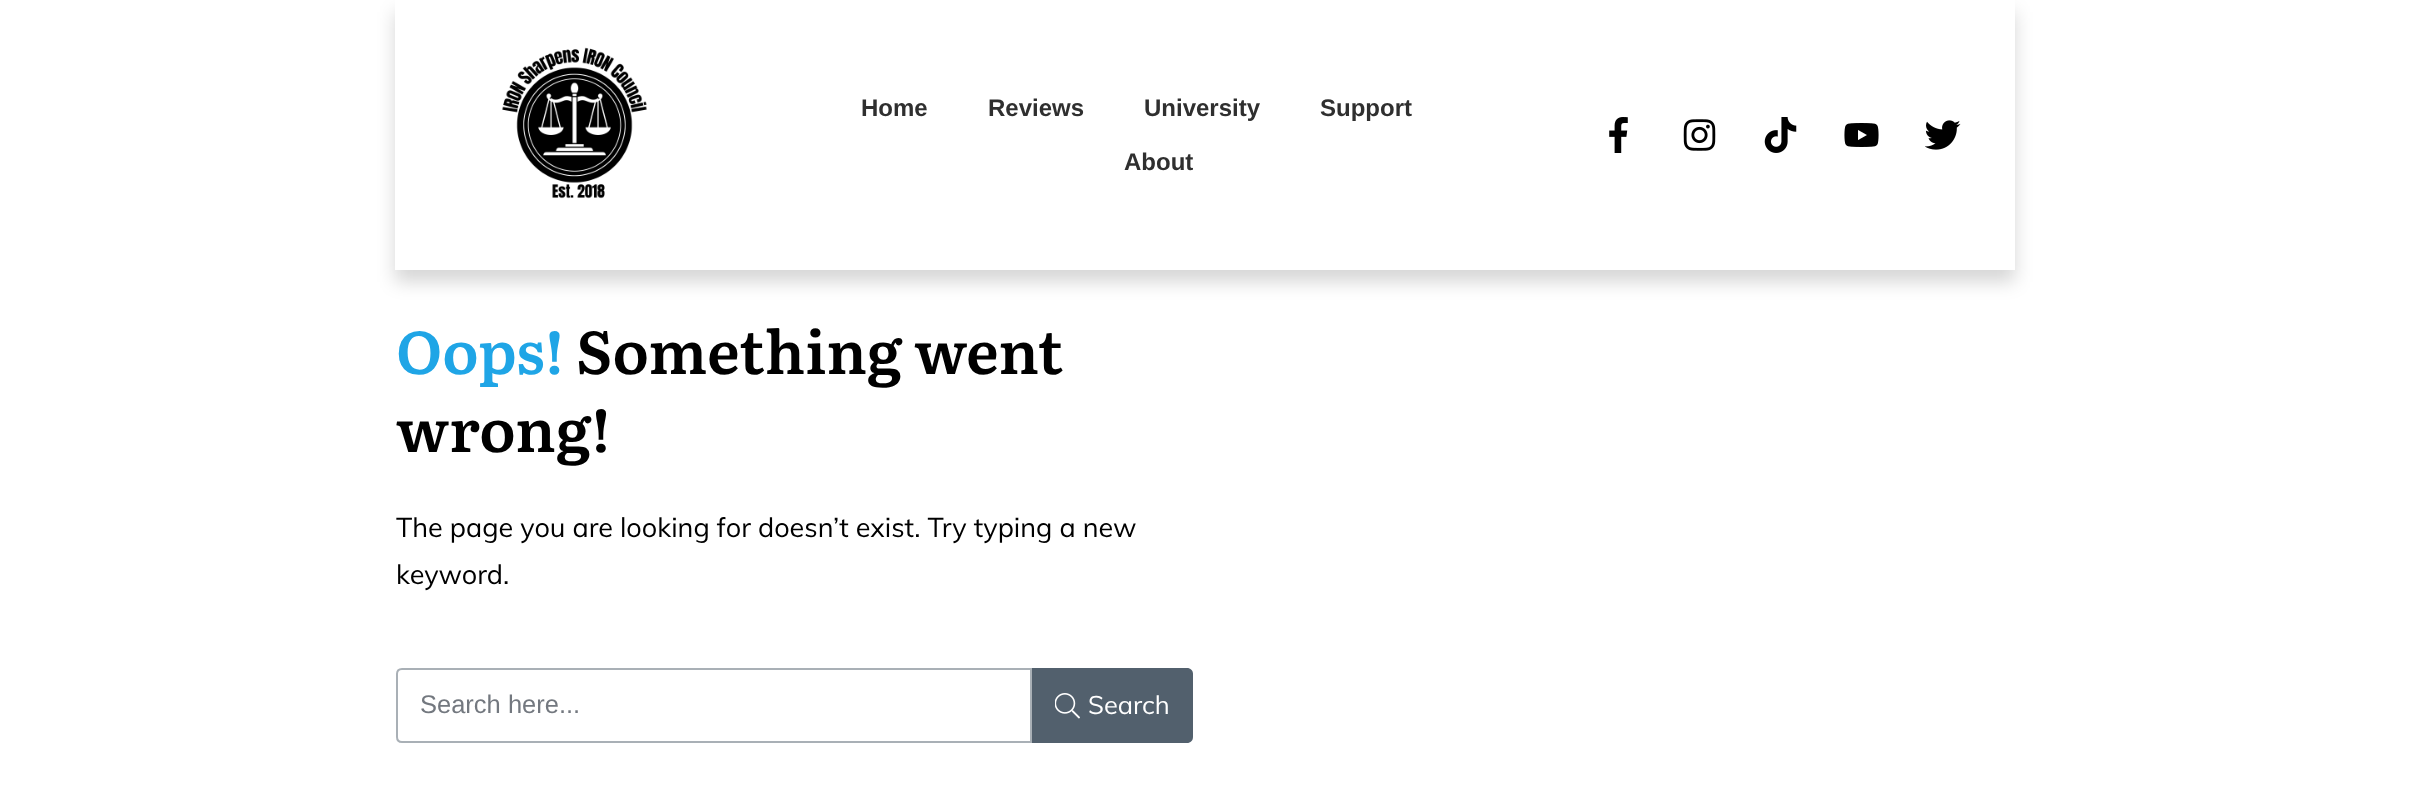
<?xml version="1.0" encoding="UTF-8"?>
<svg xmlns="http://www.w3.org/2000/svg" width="2409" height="799">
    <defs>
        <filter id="blur1" x="-50%" y="-200%" width="200%" height="500%"><feGaussianBlur stdDeviation="9"/></filter>
    </defs>
    <rect width="100%" height="100%" fill="#FFFFFF"/>
    <rect x="395" y="12" width="1620" height="270" fill="#000000" fill-opacity="0.16" filter="url(#blur1)"/>
    <rect x="395" y="0" width="1620" height="270" fill="#FFFFFF"/>
    <image x="502" y="47" width="145" height="152" href="img_01.png"/>
    <text x="861" y="116" font-family="Liberation Sans" font-size="24" font-weight="700" fill="#2F2F2F">Home</text>
    <text x="988" y="116" font-family="Liberation Sans" font-size="24" font-weight="700" fill="#2F2F2F">Reviews</text>
    <text x="1144" y="116" font-family="Liberation Sans" font-size="24" font-weight="700" fill="#2F2F2F">University</text>
    <text x="1320" y="116" font-family="Liberation Sans" font-size="24" font-weight="700" fill="#2F2F2F">Support</text>
    <text x="1124" y="170" font-family="Liberation Sans" font-size="24" font-weight="700" fill="#2F2F2F">About</text>
    <image x="1609" y="117" width="19" height="36" href="img_02.png"/>
    <image x="1683" y="119" width="33" height="32" href="img_03.png"/>
    <image x="1764" y="117" width="33" height="36" href="img_04.png"/>
    <image x="1844" y="123" width="35" height="24" href="img_05.png"/>
    <image x="1925" y="120" width="36" height="30" href="img_06.png"/>
    <text x="396" y="374" font-family="Literata" font-size="60" font-weight="600" fill="#1FA5E6">Oops!</text>
    <text x="576" y="374" font-family="Literata" font-size="60" font-weight="600" fill="#000000">Something went</text>
    <text x="396" y="452" font-family="Literata" font-size="60" font-weight="600" fill="#000000">wrong!</text>
    <text font-family="Muli" font-size="27" fill="#000000">
        <tspan x="396" y="537">The page you are looking for doesn’t exist. Try typing a new</tspan>
        <tspan x="396" y="584">keyword.</tspan>
    </text>
    <path d="M 402 669 H 1031 V 742 H 402 C 399 742 397 740 397 737 V 674 C 397 671 399 669 402 669 Z" fill="none" stroke="#A9B0B6" stroke-width="2"/>
    <text x="420" y="713" font-family="Liberation Sans" font-size="25.5" fill="#73787F">Search here...</text>
    <path d="M 1032 668 H 1187 C 1190.5 668 1193 670.5 1193 674 V 737 C 1193 740.5 1190.5 743 1187 743 H 1032 Z" fill="#52606D"/>
    <image x="1055" y="693" width="25" height="26" href="img_07.png"/>
    <text x="1088" y="714" font-family="Muli" font-size="25.5" fill="#FFFFFF">Search</text>
</svg>
